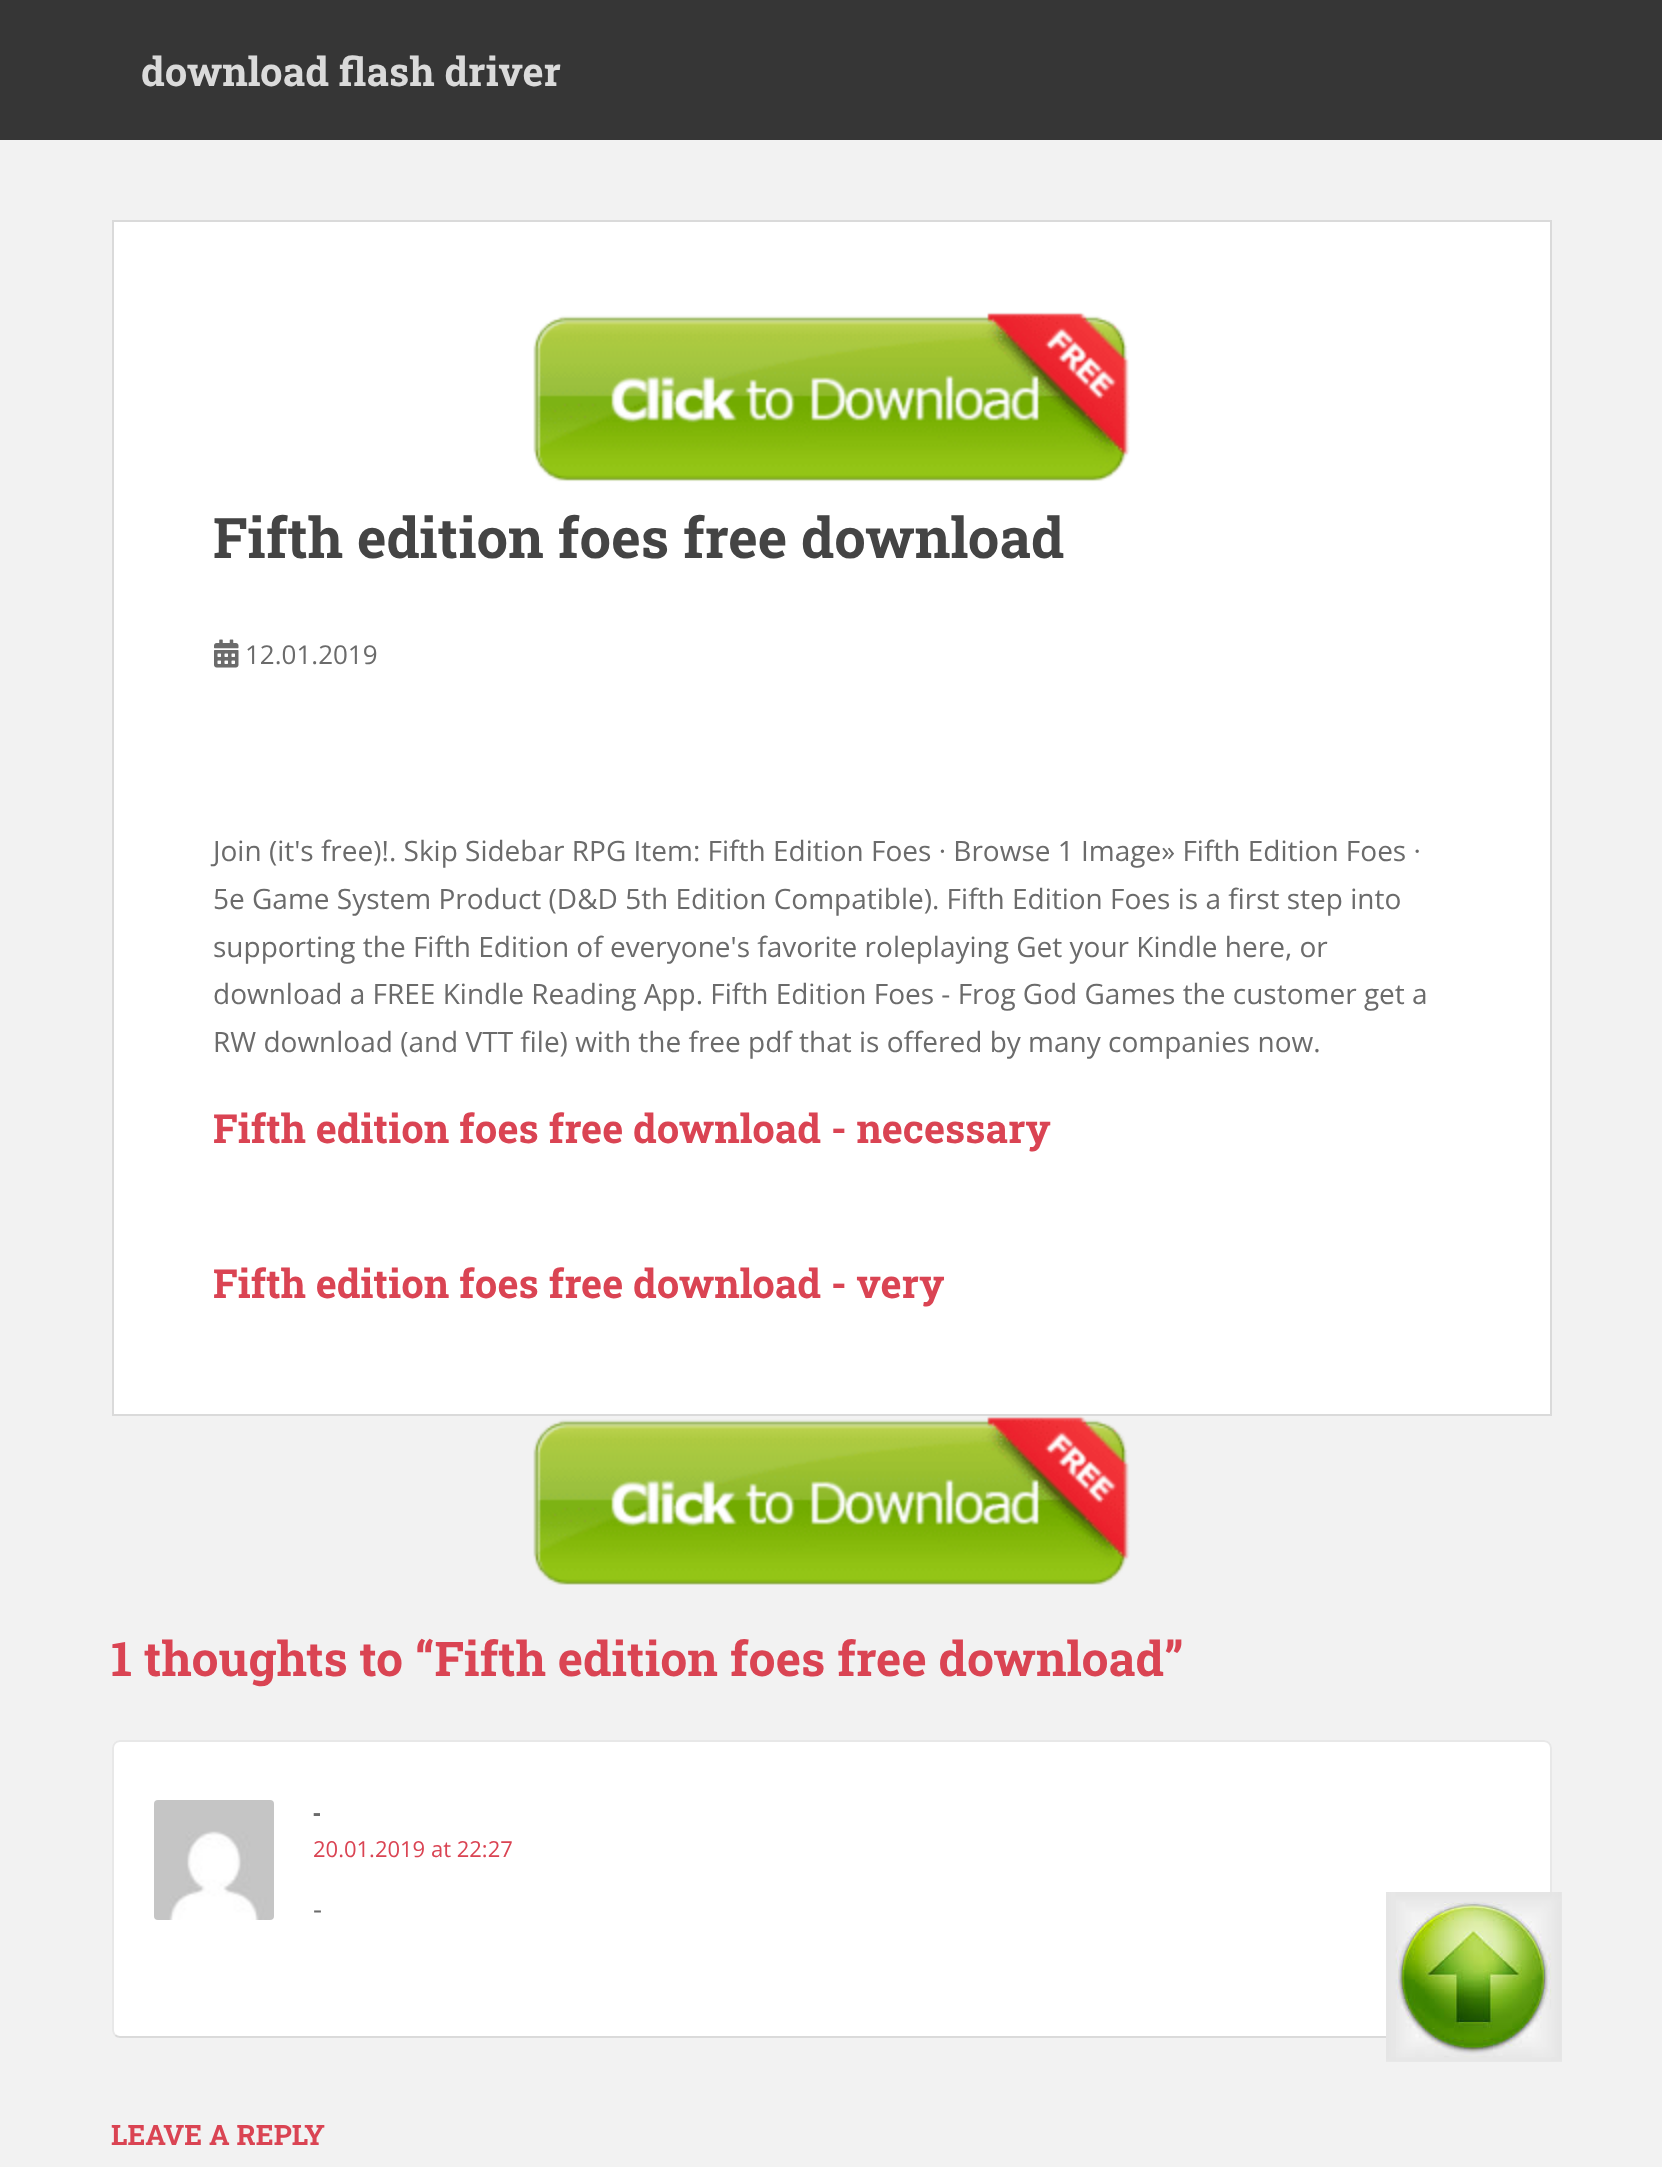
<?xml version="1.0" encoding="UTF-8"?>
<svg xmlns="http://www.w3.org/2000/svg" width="1662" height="2167">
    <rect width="100%" height="100%" fill="#F2F2F2"/>
    <rect x="0" y="0" width="1662" height="140" fill="#363636"/>
    <text x="141" y="86" font-family="Roboto Slab" font-size="40" font-weight="700" fill="#DADADA">download flash driver</text>
    <rect x="113" y="221" width="1438" height="1194" fill="#FFFFFF" stroke="#DADADA" stroke-width="2"/>
    <image x="533" y="312" width="597" height="170" href="img_01.png"/>
    <text x="213" y="558" font-family="Roboto Slab" font-size="56" font-weight="700" fill="#444444">Fifth edition foes free download</text>
    <image x="214" y="639" width="25" height="29" href="img_02.png"/>
    <text x="245" y="664" font-family="Open Sans" font-size="26" fill="#6B6B6B">12.01.2019</text>
    <text font-family="Open Sans" font-size="28" fill="#6B6B6B">
        <tspan x="213" y="861">Join (it's free)!. Skip Sidebar RPG Item: Fifth Edition Foes · Browse 1 Image» Fifth Edition Foes ·</tspan>
        <tspan x="213" y="909">5e Game System Product (D&amp;D 5th Edition Compatible). Fifth Edition Foes is a first step into</tspan>
        <tspan x="213" y="957">supporting the Fifth Edition of everyone's favorite roleplaying Get your Kindle here, or</tspan>
        <tspan x="213" y="1004">download a FREE Kindle Reading App. Fifth Edition Foes - Frog God Games the customer get a</tspan>
        <tspan x="213" y="1052">RW download (and VTT file) with the free pdf that is offered by many companies now.</tspan>
    </text>
    <text x="213" y="1143" font-family="Roboto Slab" font-size="40" font-weight="700" fill="#DA4453">Fifth edition foes free download - necessary</text>
    <text x="213" y="1298" font-family="Roboto Slab" font-size="40" font-weight="700" fill="#DA4453">Fifth edition foes free download - very</text>
    <image x="533" y="1416" width="597" height="169" href="img_03.png"/>
    <text x="111" y="1676" font-family="Roboto Slab" font-size="48" font-weight="700" fill="#DA4453">1 thoughts to “Fifth edition foes free download”</text>
    <rect x="112" y="1740" width="1440" height="298" rx="8" fill="#FFFFFF"/>
    <path d="M 1549 2035 C 1547.5 2036.5 1546 2037 1544 2037 H 120 C 118 2037 116.5 2036.5 115 2035" fill="none" stroke="#DADADA" stroke-width="2"/>
    <path d="M 115 2035 C 113.5 2033.5 113 2032 113 2030 V 1748 C 113 1746 113.5 1744.5 115 1743 C 116.5 1741.5 118 1741 120 1741 H 1544 C 1546 1741 1547.5 1741.5 1549 1743 C 1550.5 1744.5 1551 1746 1551 1748 V 2030 C 1551 2032 1550.5 2033.5 1549 2035" fill="none" stroke="#E8E8E8" stroke-width="2"/>
    <image x="154" y="1800" width="120" height="120" href="img_04.png"/>
    <text x="313" y="1821" font-family="Open Sans" font-size="24" font-weight="700" fill="#6B6B6B">-</text>
    <text x="313" y="1857" font-family="Open Sans" font-size="22" fill="#DA4453">20.01.2019 at 22:27</text>
    <text x="313" y="1919" font-family="Open Sans" font-size="28" fill="#6B6B6B">-</text>
    <text x="111" y="2145" font-family="Roboto Slab" font-size="28" font-weight="700" fill="#DA4453">LEAVE A REPLY</text>
    <image x="1386" y="1892" width="176" height="170" href="img_05.png"/>
</svg>
